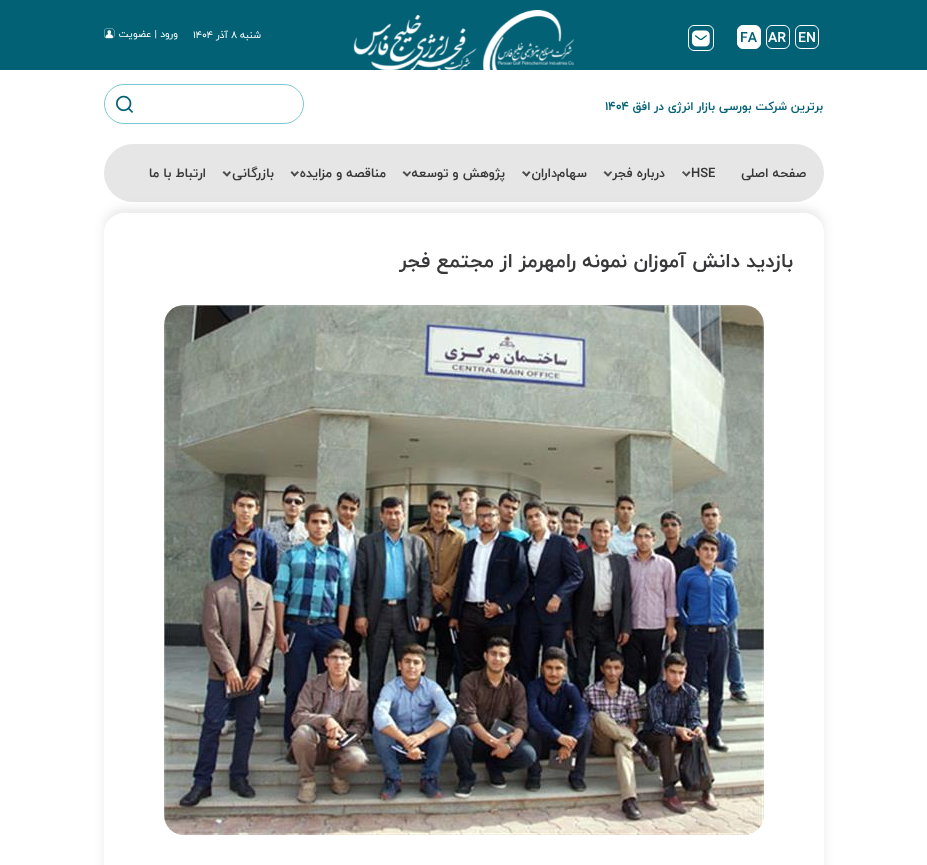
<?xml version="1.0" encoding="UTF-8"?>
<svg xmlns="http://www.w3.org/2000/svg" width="927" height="865">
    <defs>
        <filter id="blur1" x="-50%" y="-200%" width="200%" height="500%"><feGaussianBlur stdDeviation="5"/></filter>
    </defs>
    <rect width="100%" height="100%" fill="#FFFFFF"/>
    <rect x="0" y="0" width="927" height="70" fill="#026175"/>
    <rect x="795.5" y="25.5" width="23" height="23" rx="5.5" fill="none" stroke="#FFFFFF"/>
    <text x="798" y="42" font-family="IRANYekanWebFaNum" font-size="14" font-weight="700" fill="#FFFFFF">EN</text>
    <rect x="766.5" y="25.5" width="23" height="23" rx="5.5" fill="none" stroke="#FFFFFF"/>
    <text x="768" y="42" font-family="IRANYekanWebFaNum" font-size="14" font-weight="700" fill="#FFFFFF">AR</text>
    <rect x="737.5" y="25.5" width="23" height="23" rx="5.5" fill="#FFFFFF" stroke="#FFFFFF"/>
    <text x="740" y="42" font-family="IRANYekanWebFaNum" font-size="14" font-weight="700" fill="#026175">FA</text>
    <rect x="688.5" y="25.5" width="25" height="25" rx="5.5" fill="none" stroke="#FFFFFF"/>
    <image x="692" y="30" width="18" height="17" href="img_01.png"/>
    <image x="353" y="10" width="221" height="60" href="img_02.png"/>
    <text x="261" y="38" font-family="IRANYekanWebFaNum" font-size="10" direction="rtl" fill="#FFFFFF">شنبه</text>
    <text x="231" y="38" font-family="IRANYekanWebFaNum" font-size="10" fill="#FFFFFF">۸</text>
    <text x="228" y="38" font-family="IRANYekanWebFaNum" font-size="10" direction="rtl" fill="#FFFFFF">آذر</text>
    <text x="193" y="38" font-family="IRANYekanWebFaNum" font-size="10" fill="#FFFFFF">۱۴۰۴</text>
    <text x="178" y="37" font-family="IRANYekanWebFaNum" font-size="10" direction="rtl" fill="#FFFFFF">ورود | عضویت</text>
    <image x="104" y="28" width="11" height="11" href="img_03.png"/>
    <text x="823" y="110" font-family="IRANYekanWebFaNum" font-size="12" font-weight="700" direction="rtl" fill="#026175">برترین شرکت بورسی بازار انرژی در افق</text>
    <text x="605" y="110" font-family="IRANYekanWebFaNum" font-size="12" font-weight="700" fill="#026175">۱۴۰۴</text>
    <rect x="104.5" y="84.5" width="199" height="39" rx="19.5" fill="none" stroke="#7BC8D7"/>
    <image x="116" y="95" width="18" height="18" href="img_04.png"/>
    <rect x="104" y="144" width="720" height="58" rx="29" fill="#E6E6E6"/>
    <text x="806" y="177" font-family="IRANYekanWebFaNum" font-size="13" font-weight="700" direction="rtl" fill="#38383A">صفحه اصلی</text>
    <text x="691" y="177" font-family="IRANYekanWebFaNum" font-size="13" font-weight="700" fill="#38383A">HSE</text>
    <path d="M 689 171 L 690.5 172.5 L 686.5 176.5 L 685 175.5 Z" fill="#4D4D4D"/>
    <path d="M 683.5 171 L 687.5 175.5 L 686.5 176.5 L 682 172.5 Z" fill="#4D4D4D"/>
    <text x="665" y="177" font-family="IRANYekanWebFaNum" font-size="13" font-weight="700" direction="rtl" fill="#38383A">درباره فجر</text>
    <path d="M 611 171 L 612 172.5 L 608 176.5 L 606.5 175.5 Z" fill="#4D4D4D"/>
    <path d="M 605 171 L 609.5 175.5 L 608 176.5 L 603.5 172.5 Z" fill="#4D4D4D"/>
    <text x="587" y="177" font-family="IRANYekanWebFaNum" font-size="13" font-weight="700" direction="rtl" fill="#38383A">سهام‌داران</text>
    <path d="M 529 171 L 530.5 172.5 L 526.5 176.5 L 525 175.5 Z" fill="#4D4D4D"/>
    <path d="M 523.5 171 L 528 175.5 L 526.5 176.5 L 522 172.5 Z" fill="#4D4D4D"/>
    <text x="505" y="177" font-family="IRANYekanWebFaNum" font-size="13" font-weight="700" direction="rtl" fill="#38383A">پژوهش و توسعه</text>
    <path d="M 410 171 L 411 172.5 L 407 176.5 L 405.5 175.5 Z" fill="#4D4D4D"/>
    <path d="M 404 171 L 408.5 175.5 L 407 176.5 L 402.5 172.5 Z" fill="#4D4D4D"/>
    <text x="386" y="177" font-family="IRANYekanWebFaNum" font-size="13" font-weight="700" direction="rtl" fill="#38383A">مناقصه و مزایده</text>
    <path d="M 297.5 171 L 299 172.5 L 294.5 176.5 L 293 175.5 Z" fill="#4D4D4D"/>
    <path d="M 292 171 L 296 175.5 L 294.5 176.5 L 290.5 172.5 Z" fill="#4D4D4D"/>
    <text x="274" y="177" font-family="IRANYekanWebFaNum" font-size="13" font-weight="700" direction="rtl" fill="#38383A">بازرگانی</text>
    <path d="M 229.5 171 L 231 172.5 L 227 176.5 L 225.5 175.5 Z" fill="#4D4D4D"/>
    <path d="M 224 171 L 228.5 175.5 L 227 176.5 L 222.5 172.5 Z" fill="#4D4D4D"/>
    <text x="206" y="177" font-family="IRANYekanWebFaNum" font-size="13" font-weight="700" direction="rtl" fill="#38383A">ارتباط با ما</text>
    <rect x="104" y="208" width="720" height="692" rx="20" fill="#6F6F6F" fill-opacity="0.15" filter="url(#blur1)"/>
    <path d="M 124 213 H 804 C 815 213 824 222 824 233 V 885 H 104 V 233 C 104 222 113 213 124 213 Z" fill="#FFFFFF"/>
    <text x="793" y="267" font-family="IRANYekanWebFaNum" font-size="20" font-weight="700" direction="rtl" fill="#38383A">بازدید دانش آموزان نمونه رامهرمز از مجتمع فجر</text>
    <image x="164" y="305" width="600" height="530" href="img_05.png"/>
</svg>
